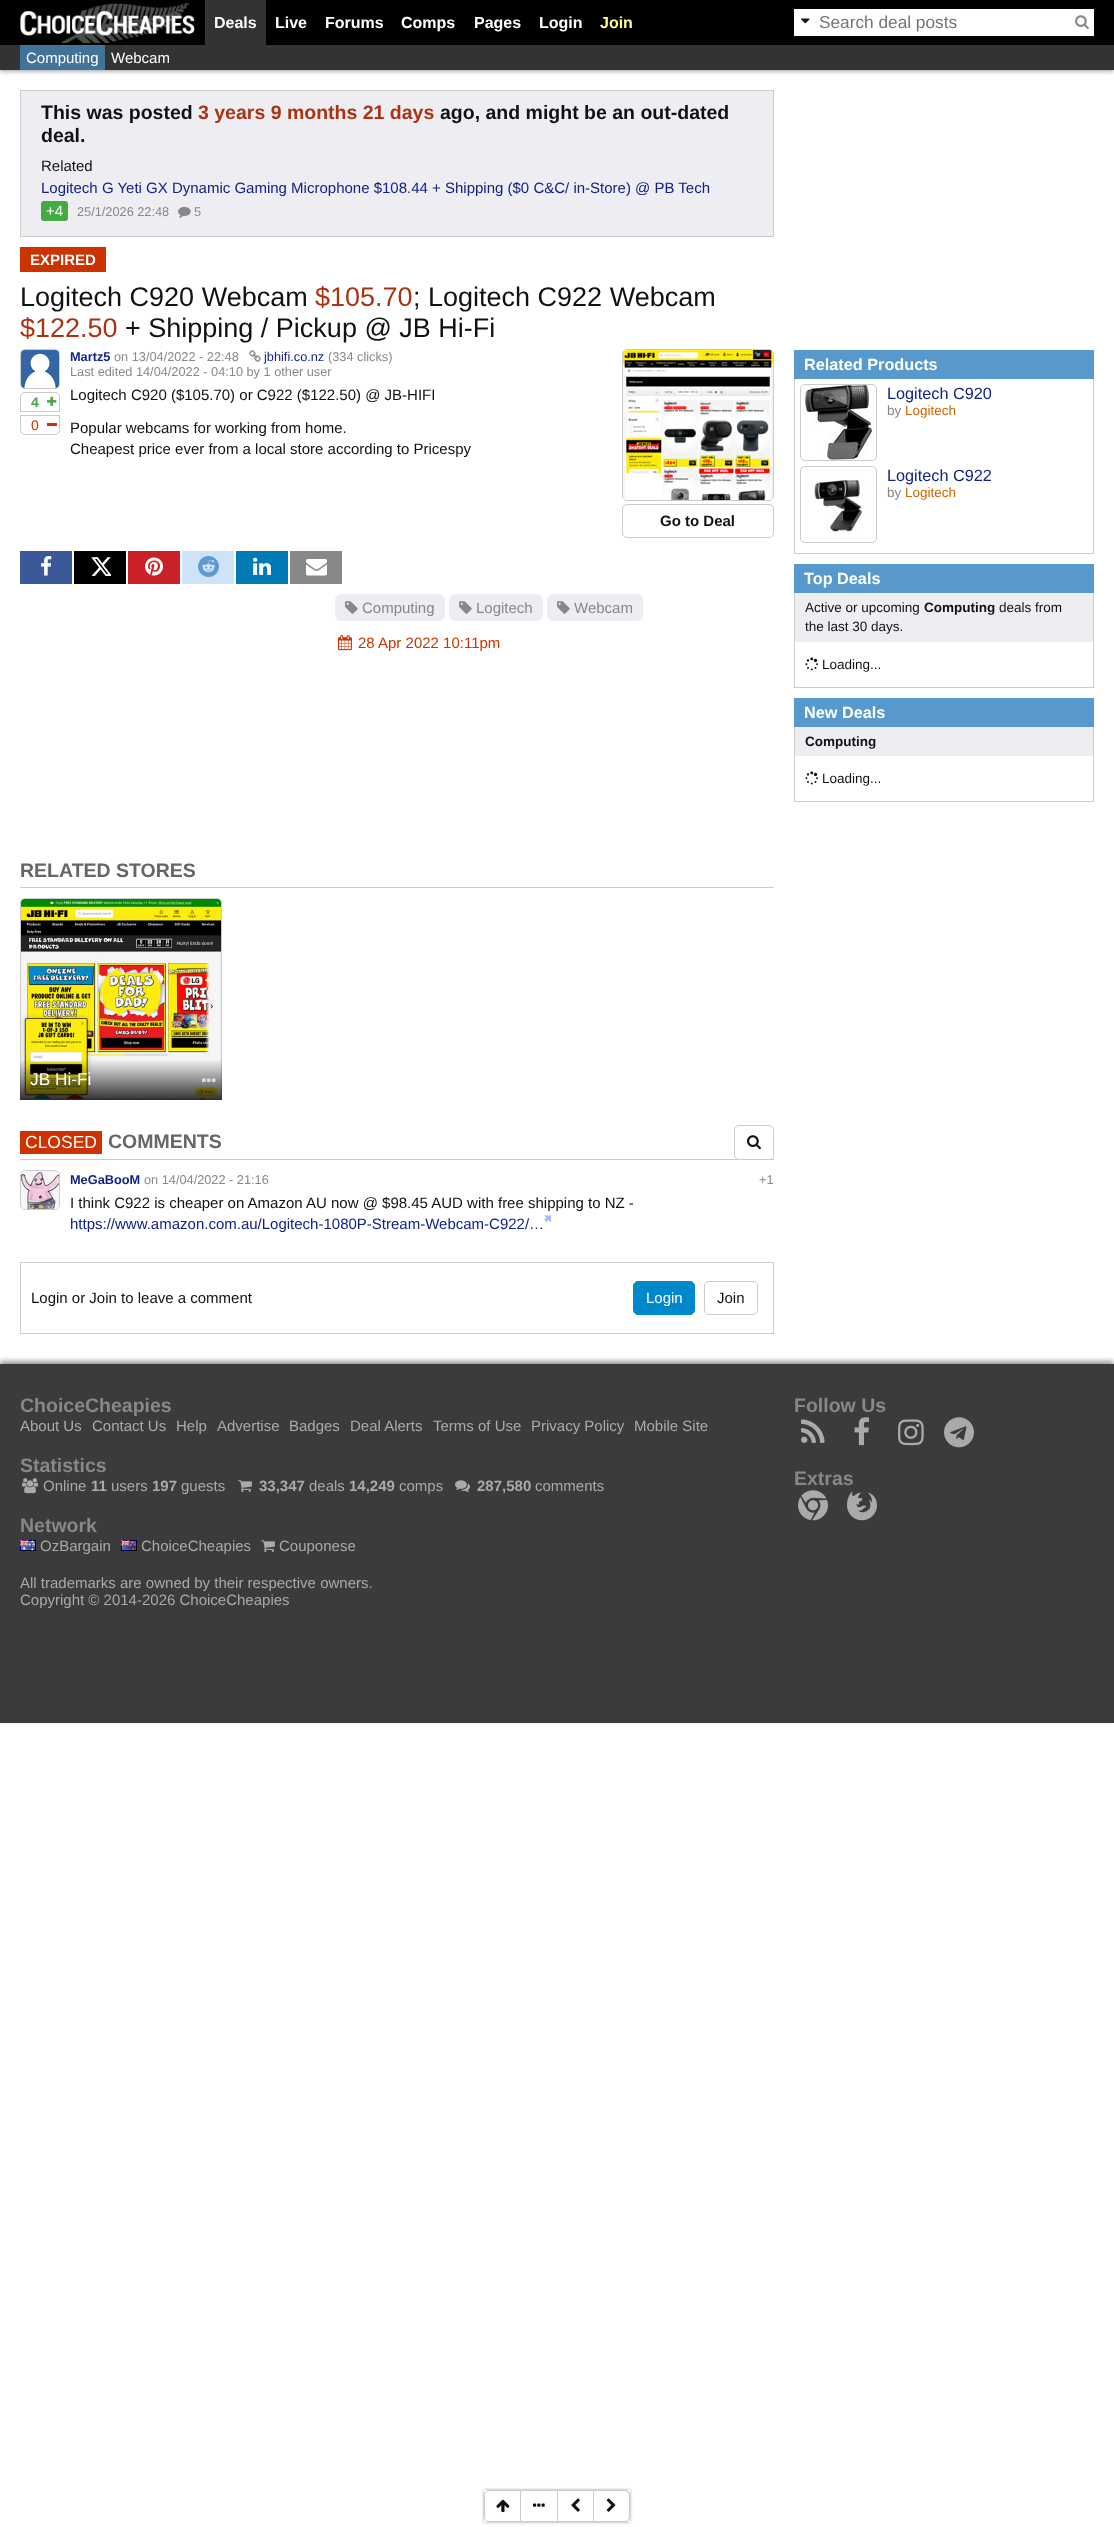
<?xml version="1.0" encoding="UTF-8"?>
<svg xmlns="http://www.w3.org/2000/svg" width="1114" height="2527">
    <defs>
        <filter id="blur1" x="-50%" y="-200%" width="200%" height="500%"><feGaussianBlur stdDeviation="2.5"/></filter>
        <linearGradient id="g1" gradientUnits="userSpaceOnUse" x1="121" y1="1100" x2="121" y2="1059"><stop offset="0" stop-color="#000000" stop-opacity="0.8"/><stop offset="1" stop-color="#000000" stop-opacity="0"/></linearGradient>
        <clipPath id="clip1"><path d="M 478 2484 H 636 V 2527 H 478 Z M 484 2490 H 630 V 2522 H 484 Z" clip-rule="evenodd"/></clipPath>
        <filter id="blur2" x="-50%" y="-200%" width="200%" height="500%"><feGaussianBlur stdDeviation="1.5"/></filter>
    </defs>
    <rect width="100%" height="100%" fill="#FFFFFF"/>
    <rect x="0" y="0" width="1114" height="45" fill="#000000"/>
    <rect x="0" y="46" width="1114" height="25" fill="#000000" fill-opacity="0.4" filter="url(#blur1)"/>
    <image x="20" y="2" width="175" height="41" href="img_01.png"/>
    <rect x="205" y="0" width="61" height="45" fill="#333333"/>
    <text x="214" y="28" font-family="Liberation Sans" font-size="16" font-weight="700" fill="#FFFFFF">Deals</text>
    <text x="275" y="28" font-family="Liberation Sans" font-size="16" font-weight="700" fill="#FFFFFF">Live</text>
    <text x="325" y="28" font-family="Liberation Sans" font-size="16" font-weight="700" fill="#FFFFFF">Forums</text>
    <text x="401" y="28" font-family="Liberation Sans" font-size="16" font-weight="700" fill="#FFFFFF">Comps</text>
    <text x="474" y="28" font-family="Liberation Sans" font-size="16" font-weight="700" fill="#FFFFFF">Pages</text>
    <text x="539" y="28" font-family="Liberation Sans" font-size="16" font-weight="700" fill="#FFFFFF">Login</text>
    <text x="600" y="28" font-family="Liberation Sans" font-size="16" font-weight="700" fill="#FFFF88">Join</text>
    <rect x="794" y="9" width="300" height="27" fill="#FFFFFF"/>
    <image x="801" y="18" width="9" height="6" href="img_02.png"/>
    <text x="819" y="28" font-family="Liberation Sans" font-size="17.25" fill="#757575">Search deal posts</text>
    <image x="1075" y="15" width="14" height="15" href="img_03.png"/>
    <rect x="0" y="45" width="1114" height="25" fill="#333333"/>
    <rect x="20" y="45" width="85" height="25" fill="#417399"/>
    <text x="26" y="63" font-family="Liberation Sans" font-size="15" fill="#FFFFFF">Computing</text>
    <text x="111" y="63" font-family="Liberation Sans" font-size="15" fill="#FFFFFF">Webcam</text>
    <rect x="20.5" y="90.5" width="753" height="146" fill="#EEEEF2" stroke="#CCCCCC"/>
    <text x="41" y="119" font-family="Liberation Sans" font-size="19.5" font-weight="700" fill="#111111">This was posted</text>
    <text x="198" y="119" font-family="Liberation Sans" font-size="19.5" font-weight="700" fill="#AA3311">3 years 9 months 21 days</text>
    <text x="440" y="119" font-family="Liberation Sans" font-size="19.5" font-weight="700" fill="#111111">ago, and might be an out-dated</text>
    <text x="41" y="142" font-family="Liberation Sans" font-size="19.5" font-weight="700" fill="#111111">deal.</text>
    <text x="41" y="171" font-family="Liberation Sans" font-size="15" fill="#111111">Related</text>
    <text x="41" y="193" font-family="Liberation Sans" font-size="15" fill="#112288">Logitech G Yeti GX Dynamic Gaming Microphone $108.44 + Shipping ($0 C&amp;C/ in-Store) @ PB Tech</text>
    <rect x="41" y="201" width="27" height="20" rx="3" fill="#44AA44"/>
    <text x="46" y="216" font-family="Liberation Sans" font-size="15" fill="#FFFFFF">+4</text>
    <text x="77" y="216" font-family="Liberation Sans" font-size="12.75" fill="#888888">25/1/2026 22:48</text>
    <image x="178" y="206" width="13" height="12" href="img_04.png"/>
    <text x="194" y="216" font-family="Liberation Sans" font-size="12.75" fill="#888888">5</text>
    <rect x="20" y="247" width="86" height="25" fill="#CC3300"/>
    <text x="30" y="265" font-family="Liberation Sans" font-size="15" font-weight="700" fill="#FFFFFF">EXPIRED</text>
    <text x="20" y="306" font-family="Liberation Sans" font-size="27" fill="#111111">Logitech C920 Webcam</text>
    <text x="315" y="306" font-family="Liberation Sans" font-size="27" fill="#AA3311">$105.70</text>
    <text x="413" y="306" font-family="Liberation Sans" font-size="27" fill="#111111">; Logitech C922 Webcam</text>
    <text x="20" y="337" font-family="Liberation Sans" font-size="27" fill="#AA3311">$122.50</text>
    <text x="125" y="337" font-family="Liberation Sans" font-size="27" fill="#111111">+ Shipping / Pickup @ JB Hi-Fi</text>
    <rect x="20.5" y="349.5" width="39" height="39" rx="4.5" fill="none" stroke="#CCCCCC"/>
    <image x="21" y="350" width="38" height="38" href="img_05.png"/>
    <path d="M 25 392.5 H 55 C 57.5 392.5 59.5 394.5 59.5 397 V 411.5 H 20.5 V 397 C 20.5 394.5 22.5 392.5 25 392.5 Z" fill="none" stroke="#CCCCCC"/>
    <text x="31" y="407" font-family="Liberation Sans" font-size="14" font-weight="700" fill="#44AA44">4</text>
    <image x="47" y="396" width="10" height="10" href="img_06.png"/>
    <path d="M 20.5 415.5 H 59.5 V 430 C 59.5 432.5 57.5 434.5 55 434.5 H 25 C 22.5 434.5 20.5 432.5 20.5 430 Z" fill="none" stroke="#CCCCCC"/>
    <text x="31" y="430" font-family="Liberation Sans" font-size="14" fill="#CC3300">0</text>
    <rect x="47" y="423" width="10" height="3" fill="#CC3300"/>
    <text x="70" y="361" font-family="Liberation Sans" font-size="12.75" font-weight="700" fill="#112288">Martz5</text>
    <text x="114" y="361" font-family="Liberation Sans" font-size="12.75" fill="#888888">on 13/04/2022 - 22:48</text>
    <image x="249" y="350" width="12" height="12" href="img_07.png"/>
    <text x="264" y="361" font-family="Liberation Sans" font-size="12.75" fill="#112288">jbhifi.co.nz</text>
    <text x="328" y="361" font-family="Liberation Sans" font-size="12.75" fill="#888888">(334 clicks)</text>
    <text x="70" y="376" font-family="Liberation Sans" font-size="12.75" fill="#888888">Last edited 14/04/2022 - 04:10 by 1 other user</text>
    <text x="70" y="400" font-family="Liberation Sans" font-size="15" fill="#111111">Logitech C920 ($105.70) or C922 ($122.50) @ JB-HIFI</text>
    <text font-family="Liberation Sans" font-size="15" fill="#111111">
        <tspan x="70" y="433">Popular webcams for working from home.</tspan>
        <tspan x="70" y="454">Cheapest price ever from a local store according to Pricespy</tspan>
    </text>
    <rect x="622.5" y="349.5" width="151" height="151" rx="4.5" fill="none" stroke="#CCCCCC"/>
    <image x="623" y="350" width="150" height="150" href="img_08.png"/>
    <rect x="622.5" y="504.5" width="151" height="33" rx="4.5" fill="none" stroke="#CCCCCC"/>
    <text x="660" y="526" font-family="Liberation Sans" font-size="15" font-weight="700" fill="#111111">Go to Deal</text>
    <rect x="20" y="551" width="52" height="33" fill="#3B5998"/>
    <image x="41" y="556" width="11" height="20" href="img_09.png"/>
    <rect x="74" y="551" width="52" height="33" fill="#000000"/>
    <image x="91" y="557" width="20" height="19" href="img_10.png"/>
    <rect x="128" y="551" width="52" height="33" fill="#CB2028"/>
    <image x="145" y="557" width="18" height="19" href="img_11.png"/>
    <rect x="182" y="551" width="52" height="33" fill="#CEE3F8"/>
    <image x="198" y="556" width="21" height="21" href="img_12.png"/>
    <rect x="236" y="551" width="52" height="33" fill="#007BB6"/>
    <image x="253" y="557" width="18" height="18" href="img_13.png"/>
    <rect x="290" y="551" width="52" height="33" fill="#888888"/>
    <image x="306" y="559" width="21" height="17" href="img_14.png"/>
    <rect x="335" y="594" width="110" height="27" rx="6" fill="#EEEEF2"/>
    <image x="345" y="601" width="13" height="13" href="img_15.png"/>
    <text x="362" y="613" font-family="Liberation Sans" font-size="15" fill="#888888">Computing</text>
    <rect x="449" y="594" width="94" height="27" rx="6" fill="#EEEEF2"/>
    <image x="459" y="601" width="13" height="13" href="img_15.png"/>
    <text x="476" y="613" font-family="Liberation Sans" font-size="15" fill="#888888">Logitech</text>
    <rect x="547" y="594" width="96" height="27" rx="6" fill="#EEEEF2"/>
    <image x="557" y="601" width="13" height="13" href="img_15.png"/>
    <text x="574" y="613" font-family="Liberation Sans" font-size="15" fill="#888888">Webcam</text>
    <image x="338" y="635" width="14" height="16" href="img_16.png"/>
    <text x="358" y="648" font-family="Liberation Sans" font-size="15" fill="#CC3300">28 Apr 2022 10:11pm</text>
    <rect x="20" y="887" width="754" height="1" fill="#CCCCCC"/>
    <text x="20" y="877" font-family="Liberation Sans" font-size="19.5" font-weight="700" fill="#666666">RELATED STORES</text>
    <rect x="20.5" y="898.5" width="201" height="201" rx="4.5" fill="none" stroke="#CCCCCC"/>
    <image x="21" y="899" width="200" height="200" href="img_17.png"/>
    <rect x="20" y="1060" width="202" height="40" fill="url(#g1)"/>
    <text x="30" y="1085" font-family="Liberation Sans" font-size="17.25" fill="#FFFFFF">JB Hi-Fi</text>
    <image x="202" y="1078" width="14" height="5" href="img_18.png"/>
    <rect x="20" y="1159" width="754" height="1" fill="#CCCCCC"/>
    <rect x="20" y="1131" width="82" height="23" fill="#CC3300"/>
    <text x="25" y="1148" font-family="Liberation Sans" font-size="17.5" fill="#FFFFFF">CLOSED</text>
    <text x="108" y="1148" font-family="Liberation Sans" font-size="19.5" font-weight="700" fill="#666666">COMMENTS</text>
    <rect x="734.5" y="1125.5" width="39" height="34" rx="4.5" fill="#FFFFFF" stroke="#CCCCCC"/>
    <image x="747" y="1135" width="14" height="15" href="img_19.png"/>
    <rect x="20.5" y="1170.5" width="39" height="39" rx="4.5" fill="none" stroke="#CCCCCC"/>
    <image x="21" y="1171" width="38" height="38" href="img_20.png"/>
    <text x="70" y="1184" font-family="Liberation Sans" font-size="12.75" font-weight="700" fill="#112288">MeGaBooM</text>
    <text x="144" y="1184" font-family="Liberation Sans" font-size="12.75" fill="#888888">on 14/04/2022 - 21:16</text>
    <text x="759" y="1184" font-family="Liberation Sans" font-size="12.75" fill="#888888">+1</text>
    <text x="70" y="1208" font-family="Liberation Sans" font-size="15" fill="#111111">I think C922 is cheaper on Amazon AU now @ $98.45 AUD with free shipping to NZ -</text>
    <text x="70" y="1229" font-family="Liberation Sans" font-size="15" fill="#112288">https://www.amazon.com.au/Logitech-1080P-Stream-Webcam-C922/…</text>
    <image x="544" y="1215" width="7" height="7" href="img_21.png"/>
    <rect x="20.5" y="1262.5" width="753" height="71" fill="none" stroke="#CCCCCC"/>
    <text x="31" y="1303" font-family="Liberation Sans" font-size="15" fill="#111111">Login or Join to leave a comment</text>
    <rect x="633.5" y="1281.5" width="61" height="33" rx="4.5" fill="#0088CC" stroke="#0088CC"/>
    <text x="646" y="1303" font-family="Liberation Sans" font-size="15" fill="#FFFFFF">Login</text>
    <rect x="704.5" y="1281.5" width="53" height="33" rx="4.5" fill="none" stroke="#CCCCCC"/>
    <text x="717" y="1303" font-family="Liberation Sans" font-size="15" fill="#111111">Join</text>
    <rect x="794" y="350" width="300" height="29" fill="#5799CC"/>
    <text x="804" y="370" font-family="Liberation Sans" font-size="16.25" font-weight="700" fill="#FFFFFF">Related Products</text>
    <rect x="1093" y="379" width="1" height="175" fill="#CCCCCC"/>
    <rect x="794" y="553" width="300" height="1" fill="#CCCCCC"/>
    <rect x="794" y="379" width="1" height="175" fill="#CCCCCC"/>
    <image x="805" y="385" width="67" height="75" href="img_22.png"/>
    <rect x="800.5" y="384.5" width="76" height="76" rx="4.5" fill="none" stroke="#CCCCCC"/>
    <text x="887" y="399" font-family="Liberation Sans" font-size="16.25" fill="#112288">Logitech C920</text>
    <text x="887" y="415" font-family="Liberation Sans" font-size="13.5" fill="#888888">by</text>
    <text x="905" y="415" font-family="Liberation Sans" font-size="13.5" fill="#CD6702">Logitech</text>
    <image x="811" y="478" width="54" height="55" href="img_23.png"/>
    <rect x="800.5" y="466.5" width="76" height="76" rx="4.5" fill="none" stroke="#CCCCCC"/>
    <text x="887" y="481" font-family="Liberation Sans" font-size="16.25" fill="#112288">Logitech C922</text>
    <text x="887" y="497" font-family="Liberation Sans" font-size="13.5" fill="#888888">by</text>
    <text x="905" y="497" font-family="Liberation Sans" font-size="13.5" fill="#CD6702">Logitech</text>
    <rect x="794" y="564" width="300" height="29" fill="#5799CC"/>
    <text x="804" y="584" font-family="Liberation Sans" font-size="16.25" font-weight="700" fill="#FFFFFF">Top Deals</text>
    <rect x="1093" y="593" width="1" height="95" fill="#CCCCCC"/>
    <rect x="794" y="687" width="300" height="1" fill="#CCCCCC"/>
    <rect x="794" y="593" width="1" height="95" fill="#CCCCCC"/>
    <rect x="795" y="593" width="298" height="49" fill="#EEEEF2"/>
    <text x="805" y="612" font-family="Liberation Sans" font-size="13.5" fill="#111111">Active or upcoming</text>
    <text x="924" y="612" font-family="Liberation Sans" font-size="13.5" font-weight="700" fill="#111111">Computing</text>
    <text x="999" y="612" font-family="Liberation Sans" font-size="13.5" fill="#111111">deals from</text>
    <text x="805" y="631" font-family="Liberation Sans" font-size="13.5" fill="#111111">the last 30 days.</text>
    <image x="805" y="657" width="13" height="14" href="img_24.png"/>
    <text x="822" y="669" font-family="Liberation Sans" font-size="13.5" fill="#111111">Loading...</text>
    <rect x="794" y="698" width="300" height="29" fill="#5799CC"/>
    <text x="804" y="718" font-family="Liberation Sans" font-size="16.25" font-weight="700" fill="#FFFFFF">New Deals</text>
    <rect x="1093" y="727" width="1" height="75" fill="#CCCCCC"/>
    <rect x="794" y="801" width="300" height="1" fill="#CCCCCC"/>
    <rect x="794" y="727" width="1" height="75" fill="#CCCCCC"/>
    <rect x="795" y="727" width="298" height="29" fill="#EEEEF2"/>
    <text x="805" y="746" font-family="Liberation Sans" font-size="13.5" font-weight="700" fill="#111111">Computing</text>
    <image x="805" y="771" width="13" height="14" href="img_24.png"/>
    <text x="822" y="783" font-family="Liberation Sans" font-size="13.5" fill="#111111">Loading...</text>
    <g clip-path="url(#clip1)">
        <rect x="484" y="2490" width="146" height="32" fill="#000000" fill-opacity="0.4" filter="url(#blur2)"/>
    </g>
    <path d="M 489 2490.5 H 520.5 V 2521.5 H 489 C 486.5 2521.5 484.5 2519.5 484.5 2517 V 2495 C 484.5 2492.5 486.5 2490.5 489 2490.5 Z" fill="none" stroke="#CCCCCC"/>
    <image x="496" y="2499" width="14" height="14" href="img_25.png"/>
    <rect x="521" y="2490" width="73" height="1" fill="#CCCCCC"/>
    <rect x="557" y="2490" width="1" height="32" fill="#CCCCCC"/>
    <rect x="521" y="2521" width="37" height="1" fill="#CCCCCC"/>
    <image x="532" y="2503" width="13" height="4" href="img_26.png"/>
    <rect x="593" y="2490" width="1" height="32" fill="#CCCCCC"/>
    <rect x="558" y="2521" width="36" height="1" fill="#CCCCCC"/>
    <image x="571" y="2498" width="9" height="14" href="img_27.png"/>
    <path d="M 594 2490 H 625 C 627.5 2490 630 2492 630 2495 V 2517 C 630 2520 627.5 2522 625 2522 H 594 Z M 594 2491 H 625 C 627 2491 629 2493 629 2495 V 2517 C 629 2519 627 2521 625 2521 H 594 Z" fill="#CCCCCC" fill-rule="evenodd"/>
    <image x="606" y="2498" width="10" height="14" href="img_28.png"/>
    <rect x="0" y="1361" width="1114" height="359" fill="#000000" fill-opacity="0.4" filter="url(#blur1)"/>
    <rect x="0" y="1364" width="1114" height="359" fill="#3B3B3B"/>
    <text x="20" y="1412" font-family="Liberation Sans" font-size="19.5" font-weight="700" fill="#888888">ChoiceCheapies</text>
    <text x="20" y="1431" font-family="Liberation Sans" font-size="15" fill="#AAAAAA">About Us</text>
    <text x="92" y="1431" font-family="Liberation Sans" font-size="15" fill="#AAAAAA">Contact Us</text>
    <text x="176" y="1431" font-family="Liberation Sans" font-size="15" fill="#AAAAAA">Help</text>
    <text x="217" y="1431" font-family="Liberation Sans" font-size="15" fill="#AAAAAA">Advertise</text>
    <text x="289" y="1431" font-family="Liberation Sans" font-size="15" fill="#AAAAAA">Badges</text>
    <text x="350" y="1431" font-family="Liberation Sans" font-size="15" fill="#AAAAAA">Deal Alerts</text>
    <text x="433" y="1431" font-family="Liberation Sans" font-size="15" fill="#AAAAAA">Terms of Use</text>
    <text x="531" y="1431" font-family="Liberation Sans" font-size="15" fill="#AAAAAA">Privacy Policy</text>
    <text x="634" y="1431" font-family="Liberation Sans" font-size="15" fill="#AAAAAA">Mobile Site</text>
    <text x="20" y="1472" font-family="Liberation Sans" font-size="19.5" font-weight="700" fill="#888888">Statistics</text>
    <image x="22" y="1478" width="16" height="16" href="img_29.png"/>
    <text x="43" y="1491" font-family="Liberation Sans" font-size="15" fill="#AAAAAA">Online</text>
    <text x="91" y="1491" font-family="Liberation Sans" font-size="15" font-weight="700" fill="#AAAAAA">11</text>
    <text x="111" y="1491" font-family="Liberation Sans" font-size="15" fill="#AAAAAA">users</text>
    <text x="152" y="1491" font-family="Liberation Sans" font-size="15" font-weight="700" fill="#AAAAAA">197</text>
    <text x="181" y="1491" font-family="Liberation Sans" font-size="15" fill="#AAAAAA">guests</text>
    <image x="238" y="1480" width="14" height="12" href="img_30.png"/>
    <text x="259" y="1491" font-family="Liberation Sans" font-size="15" font-weight="700" fill="#AAAAAA">33,347</text>
    <text x="309" y="1491" font-family="Liberation Sans" font-size="15" fill="#AAAAAA">deals</text>
    <text x="349" y="1491" font-family="Liberation Sans" font-size="15" font-weight="700" fill="#AAAAAA">14,249</text>
    <text x="399" y="1491" font-family="Liberation Sans" font-size="15" fill="#AAAAAA">comps</text>
    <image x="455" y="1480" width="15" height="12" href="img_31.png"/>
    <text x="477" y="1491" font-family="Liberation Sans" font-size="15" font-weight="700" fill="#AAAAAA">287,580</text>
    <text x="535" y="1491" font-family="Liberation Sans" font-size="15" fill="#AAAAAA">comments</text>
    <text x="20" y="1532" font-family="Liberation Sans" font-size="19.5" font-weight="700" fill="#888888">Network</text>
    <image x="20" y="1540" width="16" height="11" href="img_32.png"/>
    <text x="40" y="1551" font-family="Liberation Sans" font-size="15" fill="#AAAAAA">OzBargain</text>
    <image x="121" y="1540" width="16" height="11" href="img_33.png"/>
    <text x="141" y="1551" font-family="Liberation Sans" font-size="15" fill="#AAAAAA">ChoiceCheapies</text>
    <image x="261" y="1540" width="14" height="12" href="img_30.png"/>
    <text x="279" y="1551" font-family="Liberation Sans" font-size="15" fill="#AAAAAA">Couponese</text>
    <text font-family="Liberation Sans" font-size="15" fill="#AAAAAA">
        <tspan x="20" y="1588">All trademarks are owned by their respective owners.</tspan>
        <tspan x="20" y="1605">Copyright © 2014-2026 ChoiceCheapies</tspan>
    </text>
    <text x="794" y="1412" font-family="Liberation Sans" font-size="19.5" font-weight="700" fill="#888888">Follow Us</text>
    <image x="801" y="1419" width="24" height="24" href="img_34.png"/>
    <image x="854" y="1417" width="16" height="29" href="img_35.png"/>
    <image x="898" y="1419" width="26" height="27" href="img_36.png"/>
    <image x="944" y="1417" width="30" height="31" href="img_37.png"/>
    <text x="794" y="1485" font-family="Liberation Sans" font-size="19.5" font-weight="700" fill="#888888">Extras</text>
    <image x="798" y="1490" width="30" height="31" href="img_38.png"/>
    <image x="847" y="1491" width="30" height="30" href="img_39.png"/>
</svg>
